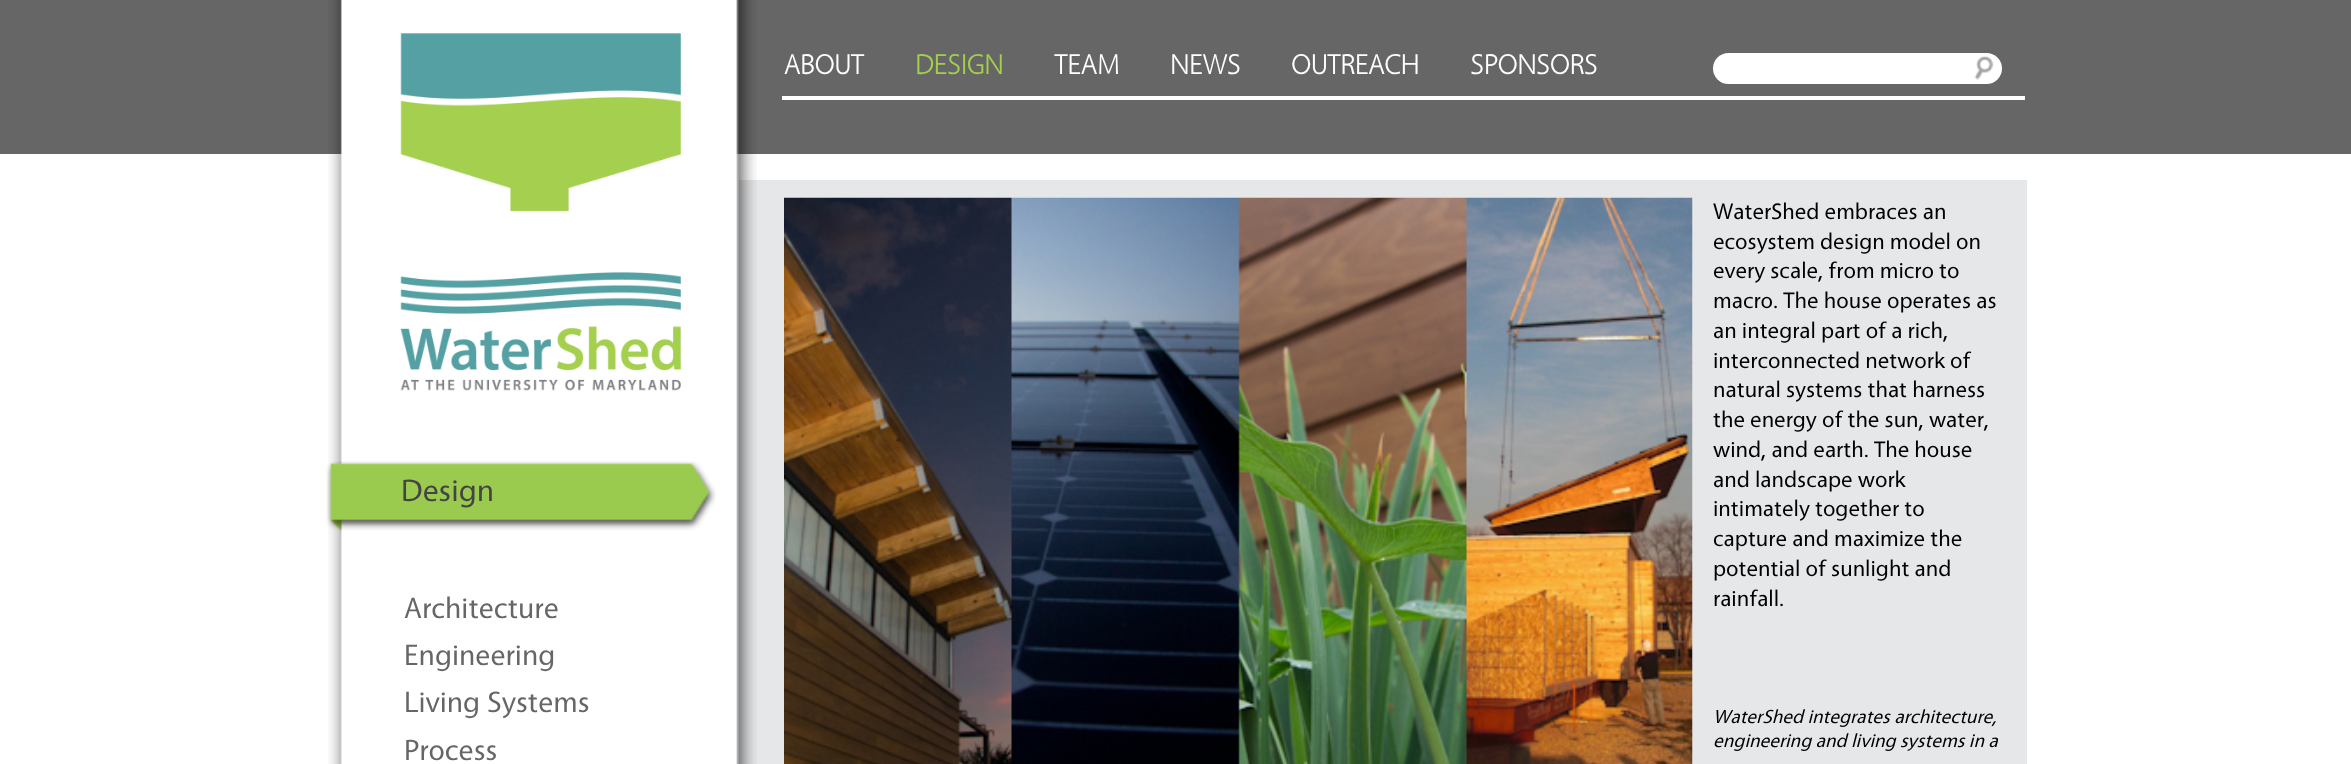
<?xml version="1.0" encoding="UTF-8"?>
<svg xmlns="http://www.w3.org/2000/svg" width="2351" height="764">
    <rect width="100%" height="100%" fill="#FFFFFF"/>
    <rect x="0" y="0" width="2351" height="154" fill="#666666"/>
    <rect x="739" y="180" width="1288" height="584" fill="#E6E7E8"/>
    <image x="328" y="0" width="429" height="764" href="img_03.png"/>
    <image x="400" y="33" width="281" height="358" href="img_01.png"/>
    <rect x="782" y="96" width="1243" height="4" fill="#FFFFFF"/>
    <text x="784" y="74" font-family="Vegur" font-size="28" font-weight="700" fill="#FFFFFF">ABOUT</text>
    <text x="915" y="74" font-family="Vegur" font-size="28" font-weight="700" fill="#A4CE4D">DESIGN</text>
    <text x="1054" y="74" font-family="Vegur" font-size="28" font-weight="700" fill="#FFFFFF">TEAM</text>
    <text x="1170" y="74" font-family="Vegur" font-size="28" font-weight="700" fill="#FFFFFF">NEWS</text>
    <text x="1291" y="74" font-family="Vegur" font-size="28" font-weight="700" fill="#FFFFFF">OUTREACH</text>
    <text x="1470" y="74" font-family="Vegur" font-size="28" font-weight="700" fill="#FFFFFF">SPONSORS</text>
    <rect x="1713" y="53" width="289" height="31" rx="15.5" fill="#FFFFFF"/>
    <image x="1974" y="56" width="20" height="24" href="img_02.png"/>
    <image x="326" y="461" width="390" height="70" href="img_04.png"/>
    <text x="401" y="501" font-family="Vegur" font-size="31.5" fill="#444444">Design</text>
    <text font-family="Vegur" font-size="29.75" fill="#666666">
        <tspan x="404" y="618">Architecture</tspan>
        <tspan x="404" y="665">Engineering</tspan>
        <tspan x="404" y="712">Living Systems</tspan>
        <tspan x="404" y="760">Process</tspan>
    </text>
    <text font-family="Vegur" font-size="22.75" fill="#000000">
        <tspan x="1713" y="219">WaterShed embraces an</tspan>
        <tspan x="1713" y="249">ecosystem design model on</tspan>
        <tspan x="1713" y="278">every scale, from micro to</tspan>
        <tspan x="1713" y="308">macro. The house operates as</tspan>
        <tspan x="1713" y="338">an integral part of a rich,</tspan>
        <tspan x="1713" y="368">interconnected network of</tspan>
        <tspan x="1713" y="397">natural systems that harness</tspan>
        <tspan x="1713" y="427">the energy of the sun, water,</tspan>
        <tspan x="1713" y="457">wind, and earth. The house</tspan>
        <tspan x="1713" y="487">and landscape work</tspan>
        <tspan x="1713" y="516">intimately together to</tspan>
        <tspan x="1713" y="546">capture and maximize the</tspan>
        <tspan x="1713" y="576">potential of sunlight and</tspan>
        <tspan x="1713" y="606">rainfall.</tspan>
    </text>
    <image x="784" y="197" width="909" height="567" href="img_05.png"/>
    <text font-family="Vegur" font-size="19.25" font-style="italic" fill="#000000">
        <tspan x="1713" y="723">WaterShed integrates architecture,</tspan>
        <tspan x="1713" y="747">engineering and living systems in a</tspan>
    </text>
</svg>
